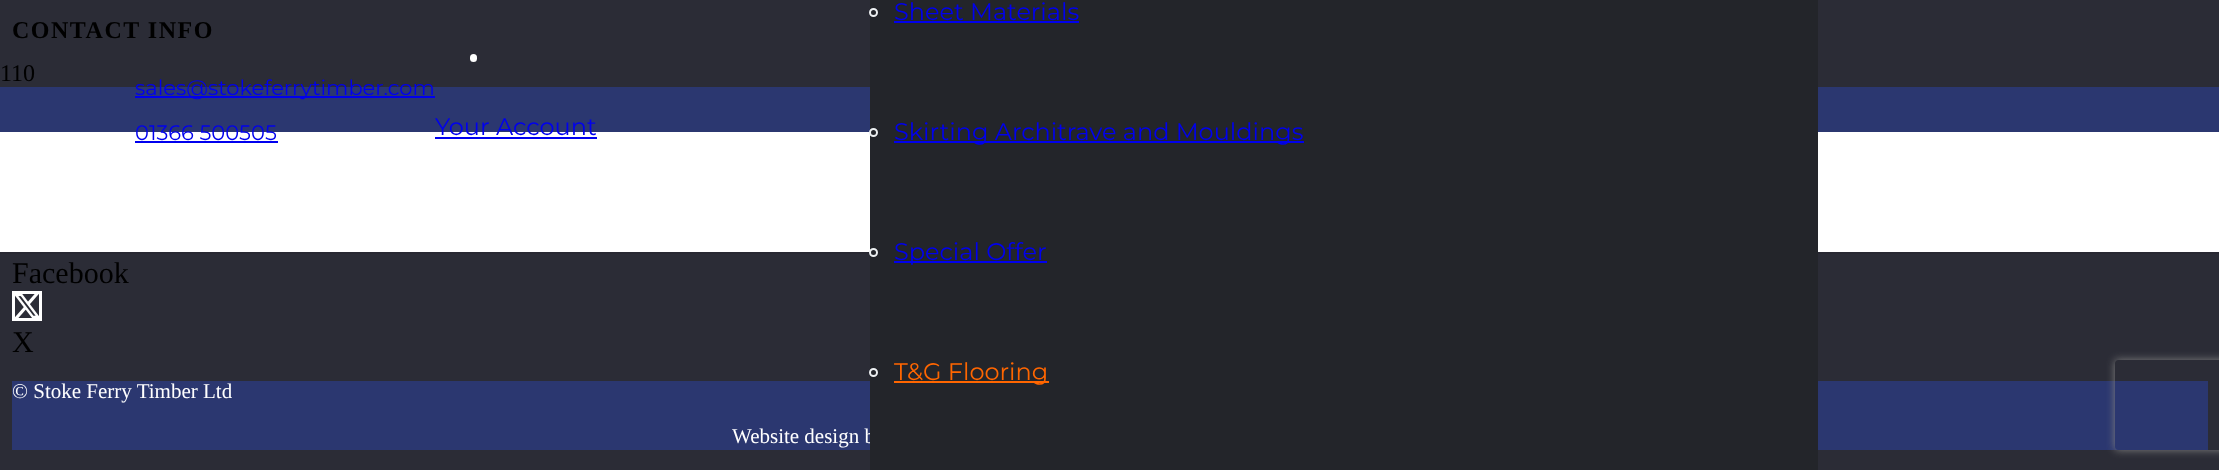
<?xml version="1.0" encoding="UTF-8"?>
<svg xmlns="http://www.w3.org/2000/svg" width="2219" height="470">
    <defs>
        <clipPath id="clip1"><path d="M 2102 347 H 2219 V 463 H 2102 Z M 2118 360 H 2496 C 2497.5 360 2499 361.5 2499 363 V 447 C 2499 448.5 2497.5 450 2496 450 H 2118 C 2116.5 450 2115 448.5 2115 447 V 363 C 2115 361.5 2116.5 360 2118 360 Z" clip-rule="evenodd"/></clipPath>
        <filter id="blur1" x="-50%" y="-200%" width="200%" height="500%"><feGaussianBlur stdDeviation="4"/></filter>
    </defs>
    <rect width="100%" height="100%" fill="#2B2C36"/>
    <text x="0" y="81" font-family="Liberation Serif" font-size="24" fill="#000000">110</text>
    <rect x="0" y="252" width="2219" height="2" fill="#282832"/>
    <rect x="0" y="132" width="2219" height="120" fill="#FFFFFF"/>
    <rect x="0" y="87" width="2219" height="45" fill="#2B3770"/>
    <rect x="12" y="381" width="2196" height="69" fill="#2B3770"/>
    <text x="732" y="443" font-family="Liberation Serif" font-size="21" fill="#FFFFFF">Website design b</text>
    <rect x="870" y="0" width="948" height="470" fill="#23252A"/>
    <circle cx="873.5" cy="12.5" r="3.5" fill="none" stroke="#EDF0F2" stroke-width="2"/>
    <text x="894" y="20" font-family="Montserrat" font-size="24" fill="#0000EE">Sheet Materials</text>
    <rect x="894" y="21" width="185" height="2" fill="#0000EE"/>
    <circle cx="873.5" cy="132.5" r="3.5" fill="none" stroke="#EDF0F2" stroke-width="2"/>
    <rect x="894" y="141" width="410" height="2" fill="#0000EE"/>
    <text x="894" y="140" font-family="Montserrat" font-size="24" fill="#0000EE">Skirting Architrave and Mouldings</text>
    <circle cx="873.5" cy="252.5" r="3.5" fill="none" stroke="#EDF0F2" stroke-width="2"/>
    <rect x="894" y="261" width="153" height="2" fill="#0000EE"/>
    <text x="894" y="260" font-family="Montserrat" font-size="24" fill="#0000EE">Special Offer</text>
    <circle cx="873.5" cy="372.5" r="3.5" fill="none" stroke="#EDF0F2" stroke-width="2"/>
    <rect x="894" y="381" width="155" height="2" fill="#FF6600"/>
    <text x="894" y="380" font-family="Montserrat" font-size="24" fill="#FF6600">T&amp;G Flooring</text>
    <rect x="135" y="96" width="300" height="2" fill="#0000EE"/>
    <text x="135" y="95" font-family="Montserrat" font-size="21" fill="#0000EE">sales@stokeferrytimber.com</text>
    <text x="135" y="140" font-family="Montserrat" font-size="21" fill="#0000EE">01366 500505</text>
    <rect x="135" y="141" width="143" height="2" fill="#0000EE"/>
    <rect x="470" y="54" width="7" height="8" rx="3.5" fill="#FFFFFF"/>
    <text x="435" y="135" font-family="Montserrat" font-size="24" fill="#0000EE">Your Account</text>
    <rect x="435" y="137" width="162" height="2" fill="#0000EE"/>
    <text x="12" y="38" font-family="Liberation Serif" font-size="24" font-weight="700" letter-spacing="1.5" fill="#000000">CONTACT INFO</text>
    <text x="12" y="283" font-family="Liberation Serif" font-size="30" fill="#000000">Facebook</text>
    <rect x="13.5" y="292.5" width="27" height="27" fill="none" stroke="#FFFFFF" stroke-width="3"/>
    <image x="15" y="294" width="24" height="24" href="img_01.png"/>
    <text x="12" y="352" font-family="Liberation Serif" font-size="30" fill="#000000">X</text>
    <text x="12" y="398" font-family="Liberation Serif" font-size="21" fill="#FFFFFF">© Stoke Ferry Timber Ltd</text>
    <g clip-path="url(#clip1)">
        <rect x="2115" y="360" width="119" height="90" rx="3" fill="#808080" filter="url(#blur1)"/>
    </g>
</svg>
